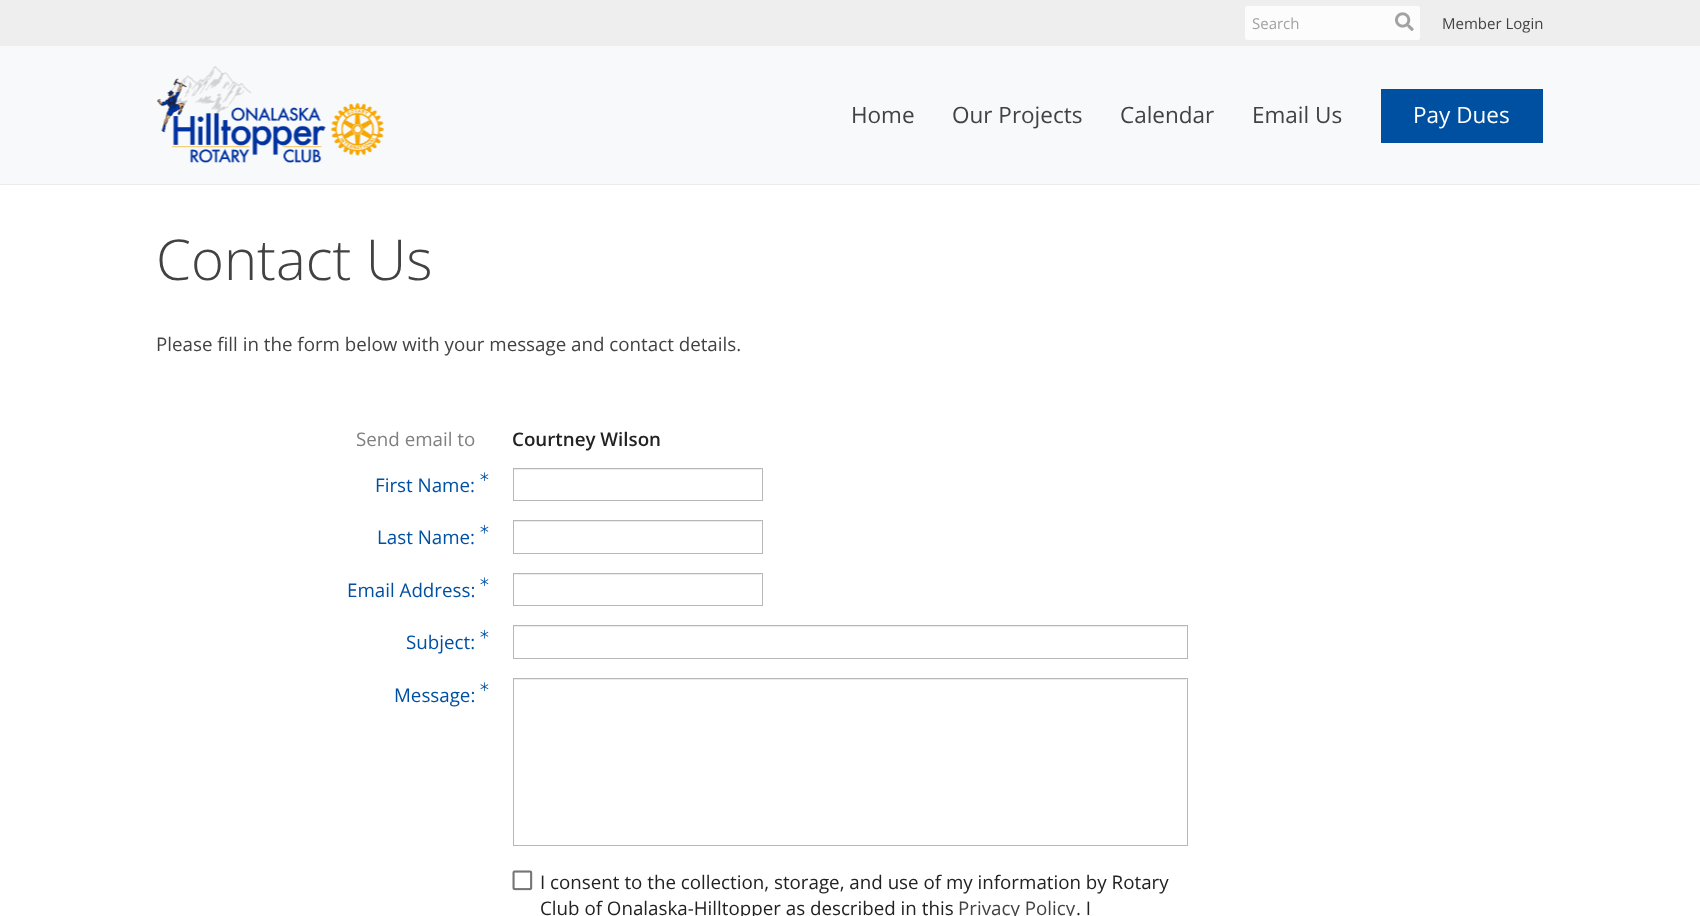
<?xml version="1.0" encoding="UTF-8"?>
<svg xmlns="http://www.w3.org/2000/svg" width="1700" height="916">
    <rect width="100%" height="100%" fill="#FFFFFF"/>
    <rect x="0" y="0" width="1700" height="46" fill="#EEEEEE"/>
    <rect x="1245" y="6" width="175" height="34" rx="2.5" fill="#FCFCFC"/>
    <text x="1252" y="29" font-family="Open Sans" font-size="15" fill="#A2A2A2">Search</text>
    <image x="1395" y="12" width="19" height="19" href="img_01.png"/>
    <text x="1442" y="29" font-family="Open Sans" font-size="15" fill="#424242">Member Login</text>
    <rect x="0" y="46" width="1700" height="139" fill="#F8F9FA"/>
    <path d="M 1700 185 H 0 L 1 184 H 1699 Z" fill="#E9ECEF"/>
    <image x="157" y="66" width="228" height="97" href="img_02.png"/>
    <text x="851" y="123" font-family="Open Sans" font-size="22.5" fill="#424242">Home</text>
    <text x="952" y="123" font-family="Open Sans" font-size="22.5" fill="#424242">Our Projects</text>
    <text x="1120" y="123" font-family="Open Sans" font-size="22.5" fill="#424242">Calendar</text>
    <text x="1252" y="123" font-family="Open Sans" font-size="22.5" fill="#424242">Email Us</text>
    <rect x="1381" y="89" width="162" height="54" fill="#0050A2"/>
    <text x="1413" y="123" font-family="Open Sans" font-size="22.5" fill="#FFFFFF">Pay Dues</text>
    <text x="156" y="280" font-family="Open Sans" font-size="56.25" font-weight="300" fill="#424242">Contact Us</text>
    <text x="156" y="351" font-family="Open Sans" font-size="18.75" fill="#424242">Please fill in the form below with your message and contact details.</text>
    <text x="356" y="446" font-family="Open Sans" font-size="18.75" fill="#808080">Send email to</text>
    <text x="512" y="446" font-family="Open Sans" font-size="18.75" font-weight="600" fill="#222222">Courtney Wilson</text>
    <image x="480" y="472" width="9" height="10" href="img_03.png"/>
    <text x="375" y="492" font-family="Open Sans" font-size="18.75" fill="#0050A2">First Name:</text>
    <rect x="514" y="469" width="247" height="1" fill="#ECECEC"/>
    <rect x="513.5" y="468.5" width="249" height="32" fill="none" stroke="#B7B7B7"/>
    <image x="480" y="524" width="9" height="10" href="img_04.png"/>
    <text x="377" y="544" font-family="Open Sans" font-size="18.75" fill="#0050A2">Last Name:</text>
    <rect x="514" y="521" width="247" height="1" fill="#ECECEC"/>
    <rect x="513.5" y="520.5" width="249" height="33" fill="none" stroke="#B7B7B7"/>
    <text x="347" y="597" font-family="Open Sans" font-size="18.75" fill="#0050A2">Email Address:</text>
    <image x="480" y="577" width="9" height="10" href="img_03.png"/>
    <rect x="514" y="574" width="247" height="1" fill="#ECECEC"/>
    <rect x="513.5" y="573.5" width="249" height="32" fill="none" stroke="#B7B7B7"/>
    <text x="406" y="649" font-family="Open Sans" font-size="18.75" fill="#0050A2">Subject:</text>
    <image x="480" y="629" width="9" height="10" href="img_04.png"/>
    <rect x="514" y="626" width="672" height="1" fill="#ECECEC"/>
    <rect x="513.5" y="625.5" width="674" height="33" fill="none" stroke="#B7B7B7"/>
    <image x="480" y="682" width="9" height="10" href="img_03.png"/>
    <text x="394" y="702" font-family="Open Sans" font-size="18.75" fill="#0050A2">Message:</text>
    <rect x="514" y="679" width="672" height="1" fill="#ECECEC"/>
    <rect x="513.5" y="678.5" width="674" height="167" fill="none" stroke="#B7B7B7"/>
    <image x="512" y="870" width="21" height="21" href="img_05.png"/>
    <text font-family="Open Sans" font-size="18.75" fill="#222222">
        <tspan x="540" y="889">I consent to the collection, storage, and use of my information by Rotary</tspan>
        <tspan x="540" y="915">Club of Onalaska-Hilltopper as described in this</tspan>
    </text>
    <text x="958" y="915" font-family="Open Sans" font-size="18.75" fill="#424242">Privacy Policy</text>
    <text x="1076" y="915" font-family="Open Sans" font-size="18.75" fill="#222222">. I</text>
</svg>
